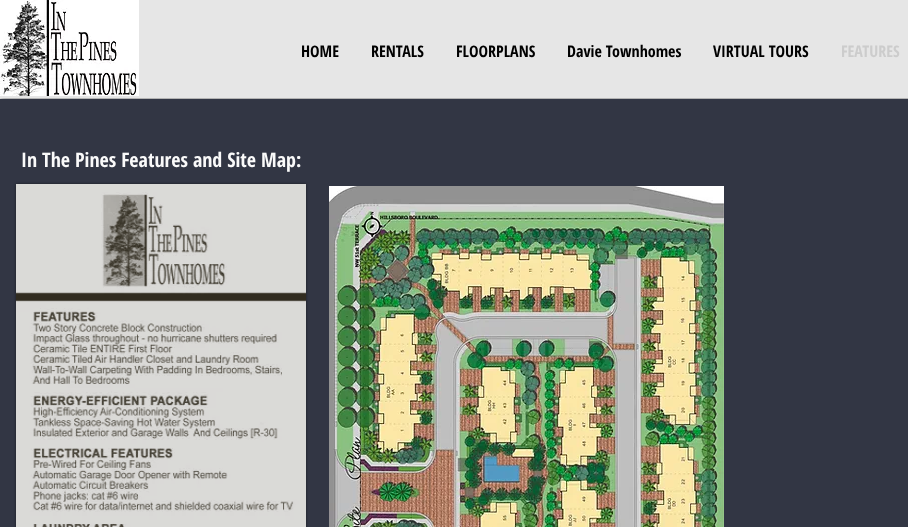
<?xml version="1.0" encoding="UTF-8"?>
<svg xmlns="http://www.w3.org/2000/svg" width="908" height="527">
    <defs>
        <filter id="blur1" x="-50%" y="-200%" width="200%" height="500%"><feGaussianBlur stdDeviation="2.5"/></filter>
        <filter id="blur2" x="-50%" y="-200%" width="200%" height="500%"><feGaussianBlur stdDeviation="1.5"/></filter>
    </defs>
    <rect width="100%" height="100%" fill="#FFFFFF"/>
    <rect x="0" y="0" width="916" height="98" fill="#000000" fill-opacity="0.7" filter="url(#blur1)"/>
    <rect x="0" y="0" width="908" height="98" fill="#E6E6E6"/>
    <image x="0" y="0" width="139" height="96" href="img_01.png"/>
    <text x="301" y="57" font-family="Open Sans Condensed" font-size="16" font-weight="700" fill="#000000">HOME</text>
    <text x="371" y="57" font-family="Open Sans Condensed" font-size="16" font-weight="700" fill="#000000">RENTALS</text>
    <text x="456" y="57" font-family="Open Sans Condensed" font-size="16" font-weight="700" fill="#000000">FLOORPLANS</text>
    <text x="567" y="57" font-family="Open Sans Condensed" font-size="16" font-weight="700" fill="#000000">Davie Townhomes</text>
    <text x="713" y="57" font-family="Open Sans Condensed" font-size="16" font-weight="700" fill="#000000">VIRTUAL TOURS</text>
    <text x="841" y="57" font-family="Open Sans Condensed" font-size="16" font-weight="700" fill="#CCCCCC">FEATURES</text>
    <rect x="0" y="99" width="908" height="428" fill="#323644"/>
    <text x="21" y="167" font-family="Open Sans Condensed" font-size="20" font-weight="700" fill="#FAFAFA">In The Pines Features and Site Map:</text>
    <rect x="16" y="184" width="290" height="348" fill="#000000" fill-opacity="0.5" filter="url(#blur2)"/>
    <image x="16" y="184" width="290" height="343" href="img_02.png"/>
    <image x="329" y="186" width="395" height="341" href="img_03.png"/>
</svg>
